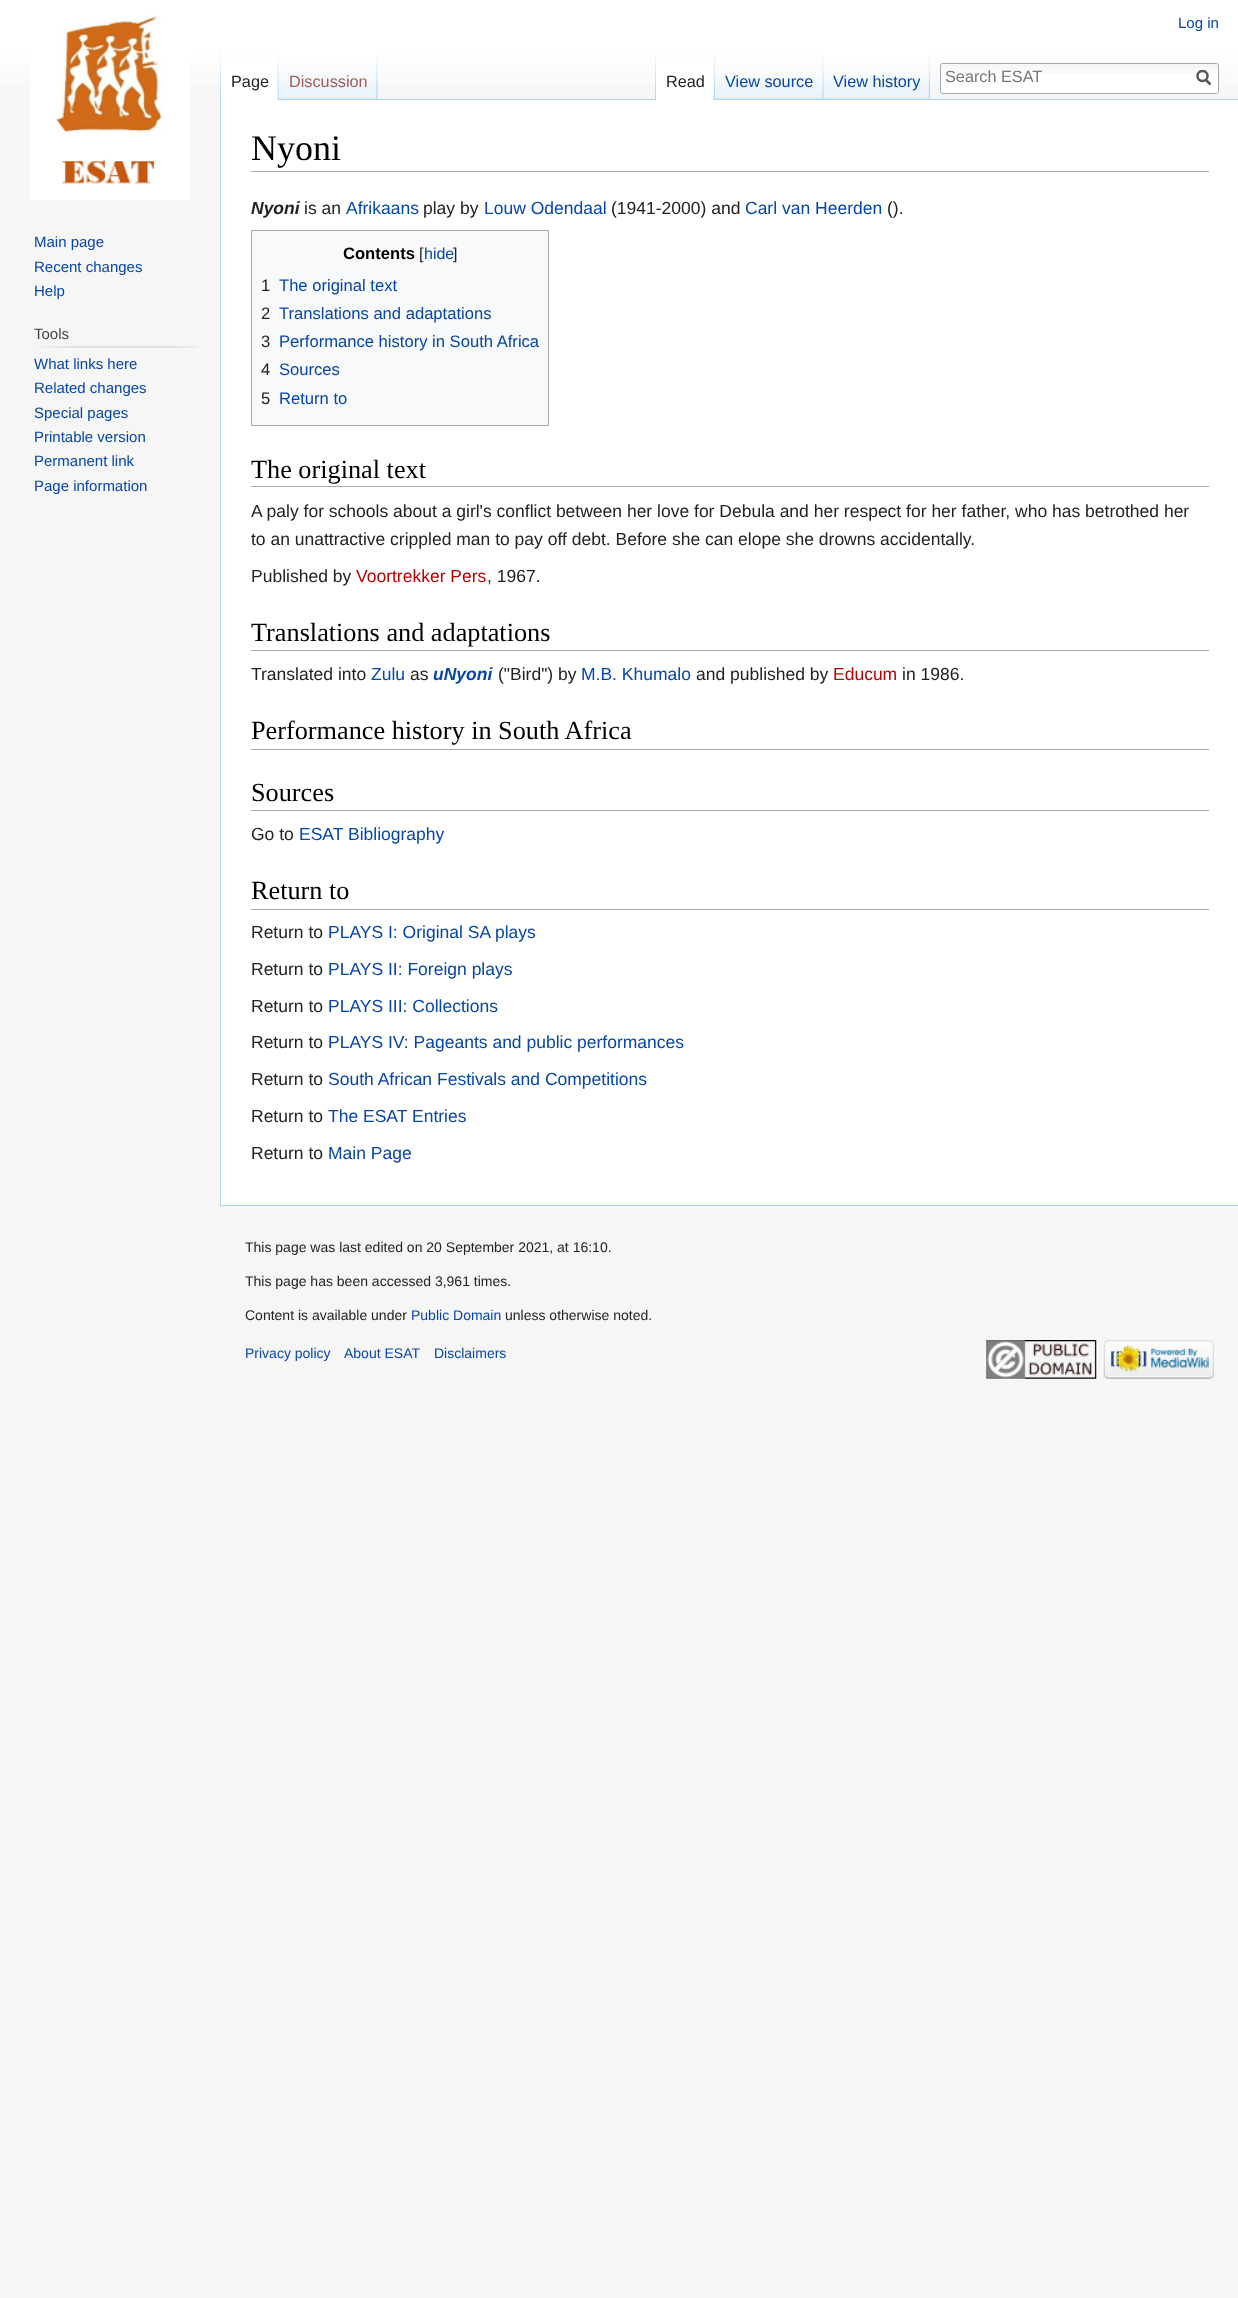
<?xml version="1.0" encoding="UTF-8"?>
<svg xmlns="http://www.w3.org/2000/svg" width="1238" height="2298">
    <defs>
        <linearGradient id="g1" gradientUnits="userSpaceOnUse" x1="619" y1="0" x2="619" y2="100"><stop offset="0.5" stop-color="#FFFFFF"/><stop offset="1" stop-color="#F6F6F6"/></linearGradient>
        <clipPath id="clip1"><rect x="1196" y="70" width="15" height="16"/></clipPath>
    </defs>
    <rect width="100%" height="100%" fill="#F6F6F6"/>
    <rect x="0" y="0" width="1238" height="86" fill="url(#g1)"/>
    <text x="1178" y="28" font-family="Liberation Sans" font-size="15" fill="#0645AD">Log in</text>
    <image x="220" y="50" width="2" height="49" href="img_01.png"/>
    <image x="377" y="52" width="1" height="47" href="img_02.png"/>
    <rect x="221" y="58" width="58" height="42" fill="#FFFFFF"/>
    <image x="277" y="52" width="2" height="48" href="img_03.png"/>
    <text x="231" y="87" font-family="Liberation Sans" font-size="16.25" fill="#222222">Page</text>
    <rect x="377" y="99" width="861" height="1" fill="#A7D7F9"/>
    <image x="278" y="52" width="100" height="48" href="img_04.png"/>
    <image x="376" y="52" width="2" height="47" href="img_05.png"/>
    <text x="289" y="87" font-family="Liberation Sans" font-size="16.25" fill="#A55858">Discussion</text>
    <image x="655" y="50" width="2" height="49" href="img_01.png"/>
    <rect x="656" y="58" width="58" height="42" fill="#FFFFFF"/>
    <image x="713" y="50" width="2" height="50" href="img_06.png"/>
    <text x="666" y="87" font-family="Liberation Sans" font-size="16.25" fill="#222222">Read</text>
    <image x="715" y="77" width="109" height="22" href="img_07.png"/>
    <image x="822" y="52" width="2" height="47" href="img_08.png"/>
    <text x="725" y="87" font-family="Liberation Sans" font-size="16.25" fill="#0645AD">View source</text>
    <image x="823" y="50" width="106" height="49" href="img_09.png"/>
    <image x="928" y="50" width="2" height="49" href="img_10.png"/>
    <text x="833" y="87" font-family="Liberation Sans" font-size="16.25" fill="#0645AD">View history</text>
    <rect x="940" y="63" width="279" height="31" rx="2.5" fill="#FFFFFF"/>
    <image x="940" y="64" width="279" height="10" href="img_11.png"/>
    <rect x="940.5" y="63.5" width="278" height="30" rx="2" fill="none" stroke="#A2A9B1"/>
    <text x="945" y="82" font-family="Liberation Sans" font-size="16.25" fill="#72777D">Search ESAT</text>
    <path d="M 1210.5 84.5 L 1205.5 79.5" fill="none" stroke="#54595D" stroke-width="2.5"/>
    <g clip-path="url(#clip1)">
        <circle cx="1202.5" cy="76" r="5" fill="none" stroke="#54595D" stroke-width="2.5"/>
    </g>
    <image x="30" y="14" width="160" height="186" href="img_12.png"/>
    <text font-family="Liberation Sans" font-size="15" fill="#0645AD">
        <tspan x="34" y="247">Main page</tspan>
        <tspan x="34" y="272">Recent changes</tspan>
        <tspan x="34" y="296">Help</tspan>
    </text>
    <text x="34" y="339" font-family="Liberation Sans" font-size="15" fill="#444444">Tools</text>
    <image x="37" y="346" width="161" height="2" href="img_13.png"/>
    <text font-family="Liberation Sans" font-size="15" fill="#0645AD">
        <tspan x="34" y="369">What links here</tspan>
        <tspan x="34" y="393">Related changes</tspan>
        <tspan x="34" y="418">Special pages</tspan>
        <tspan x="34" y="442">Printable version</tspan>
        <tspan x="34" y="466">Permanent link</tspan>
        <tspan x="34" y="491">Page information</tspan>
    </text>
    <rect x="221" y="100" width="1017" height="1105" fill="#FFFFFF"/>
    <rect x="220" y="1205" width="1018" height="1" fill="#A7D7F9"/>
    <rect x="220" y="99" width="1" height="1107" fill="#A7D7F9"/>
    <rect x="251" y="171" width="958" height="1" fill="#A2A9B1"/>
    <text x="251" y="160" font-family="Liberation Serif" font-size="36" fill="#000000">Nyoni</text>
    <text x="251" y="214" font-family="Liberation Sans" font-size="17.5" font-weight="700" font-style="italic" fill="#222222">Nyoni</text>
    <text x="304" y="214" font-family="Liberation Sans" font-size="17.5" fill="#222222">is an</text>
    <text x="346" y="214" font-family="Liberation Sans" font-size="17.5" fill="#0645AD">Afrikaans</text>
    <text x="423" y="214" font-family="Liberation Sans" font-size="17.5" fill="#222222">play by</text>
    <text x="484" y="214" font-family="Liberation Sans" font-size="17.5" fill="#0645AD">Louw Odendaal</text>
    <text x="611" y="214" font-family="Liberation Sans" font-size="17.5" fill="#222222">(1941-2000) and</text>
    <text x="745" y="214" font-family="Liberation Sans" font-size="17.5" fill="#0645AD">Carl van Heerden</text>
    <text x="887" y="214" font-family="Liberation Sans" font-size="17.5" fill="#222222">().</text>
    <rect x="251.5" y="230.5" width="297" height="195" fill="#F8F9FA" stroke="#A2A9B1"/>
    <text x="343" y="259" font-family="Liberation Sans" font-size="16.6" font-weight="700" fill="#000000">Contents</text>
    <text x="419" y="259" font-family="Liberation Sans" font-size="16" fill="#222222">[</text>
    <text x="424" y="259" font-family="Liberation Sans" font-size="16" fill="#0645AD">hide</text>
    <text x="453" y="259" font-family="Liberation Sans" font-size="16" fill="#222222">]</text>
    <text x="261" y="291" font-family="Liberation Sans" font-size="16.6" fill="#222222">1</text>
    <text x="279" y="291" font-family="Liberation Sans" font-size="16.6" fill="#0645AD">The original text</text>
    <text x="261" y="319" font-family="Liberation Sans" font-size="16.6" fill="#222222">2</text>
    <text x="279" y="319" font-family="Liberation Sans" font-size="16.6" fill="#0645AD">Translations and adaptations</text>
    <text x="261" y="347" font-family="Liberation Sans" font-size="16.6" fill="#222222">3</text>
    <text x="279" y="347" font-family="Liberation Sans" font-size="16.6" fill="#0645AD">Performance history in South Africa</text>
    <text x="261" y="375" font-family="Liberation Sans" font-size="16.6" fill="#222222">4</text>
    <text x="279" y="375" font-family="Liberation Sans" font-size="16.6" fill="#0645AD">Sources</text>
    <text x="261" y="404" font-family="Liberation Sans" font-size="16.6" fill="#222222">5</text>
    <text x="279" y="404" font-family="Liberation Sans" font-size="16.6" fill="#0645AD">Return to</text>
    <rect x="251" y="486" width="958" height="1" fill="#A2A9B1"/>
    <text x="251" y="478" font-family="Liberation Serif" font-size="26.25" fill="#000000">The original text</text>
    <text font-family="Liberation Sans" font-size="17.5" fill="#222222">
        <tspan x="251" y="517">A paly for schools about a girl's conflict between her love for Debula and her respect for her father, who has betrothed her</tspan>
        <tspan x="251" y="545">to an unattractive crippled man to pay off debt. Before she can elope she drowns accidentally.</tspan>
    </text>
    <text x="251" y="582" font-family="Liberation Sans" font-size="17.5" fill="#222222">Published by</text>
    <text x="356" y="582" font-family="Liberation Sans" font-size="17.5" fill="#BA0000">Voortrekker Pers</text>
    <text x="487" y="582" font-family="Liberation Sans" font-size="17.5" fill="#222222">, 1967.</text>
    <rect x="251" y="650" width="958" height="1" fill="#A2A9B1"/>
    <text x="251" y="641" font-family="Liberation Serif" font-size="26.25" fill="#000000">Translations and adaptations</text>
    <text x="251" y="680" font-family="Liberation Sans" font-size="17.5" fill="#222222">Translated into</text>
    <text x="371" y="680" font-family="Liberation Sans" font-size="17.5" fill="#0645AD">Zulu</text>
    <text x="410" y="680" font-family="Liberation Sans" font-size="17.5" fill="#222222">as</text>
    <text x="433" y="680" font-family="Liberation Sans" font-size="17.5" font-weight="700" font-style="italic" fill="#0645AD">uNyoni</text>
    <text x="498" y="680" font-family="Liberation Sans" font-size="17.5" fill="#222222">("Bird") by</text>
    <text x="581" y="680" font-family="Liberation Sans" font-size="17.5" fill="#0645AD">M.B. Khumalo</text>
    <text x="696" y="680" font-family="Liberation Sans" font-size="17.5" fill="#222222">and published by</text>
    <text x="833" y="680" font-family="Liberation Sans" font-size="17.5" fill="#BA0000">Educum</text>
    <text x="902" y="680" font-family="Liberation Sans" font-size="17.5" fill="#222222">in 1986.</text>
    <rect x="251" y="749" width="958" height="1" fill="#A2A9B1"/>
    <text x="251" y="739" font-family="Liberation Serif" font-size="26.25" fill="#000000">Performance history in South Africa</text>
    <rect x="251" y="810" width="958" height="1" fill="#A2A9B1"/>
    <text x="251" y="801" font-family="Liberation Serif" font-size="26.25" fill="#000000">Sources</text>
    <text x="251" y="840" font-family="Liberation Sans" font-size="17.5" fill="#222222">Go to</text>
    <text x="299" y="840" font-family="Liberation Sans" font-size="17.5" fill="#0645AD">ESAT Bibliography</text>
    <rect x="251" y="909" width="958" height="1" fill="#A2A9B1"/>
    <text x="251" y="899" font-family="Liberation Serif" font-size="26.25" fill="#000000">Return to</text>
    <text x="251" y="938" font-family="Liberation Sans" font-size="17.5" fill="#222222">Return to</text>
    <text x="328" y="938" font-family="Liberation Sans" font-size="17.5" fill="#0645AD">PLAYS I: Original SA plays</text>
    <text x="251" y="975" font-family="Liberation Sans" font-size="17.5" fill="#222222">Return to</text>
    <text x="328" y="975" font-family="Liberation Sans" font-size="17.5" fill="#0645AD">PLAYS II: Foreign plays</text>
    <text x="251" y="1012" font-family="Liberation Sans" font-size="17.5" fill="#222222">Return to</text>
    <text x="328" y="1012" font-family="Liberation Sans" font-size="17.5" fill="#0645AD">PLAYS III: Collections</text>
    <text x="251" y="1048" font-family="Liberation Sans" font-size="17.5" fill="#222222">Return to</text>
    <text x="328" y="1048" font-family="Liberation Sans" font-size="17.5" fill="#0645AD">PLAYS IV: Pageants and public performances</text>
    <text x="251" y="1085" font-family="Liberation Sans" font-size="17.5" fill="#222222">Return to</text>
    <text x="328" y="1085" font-family="Liberation Sans" font-size="17.5" fill="#0645AD">South African Festivals and Competitions</text>
    <text x="251" y="1122" font-family="Liberation Sans" font-size="17.5" fill="#222222">Return to</text>
    <text x="328" y="1122" font-family="Liberation Sans" font-size="17.5" fill="#0645AD">The ESAT Entries</text>
    <text x="251" y="1159" font-family="Liberation Sans" font-size="17.5" fill="#222222">Return to</text>
    <text x="328" y="1159" font-family="Liberation Sans" font-size="17.5" fill="#0645AD">Main Page</text>
    <text x="245" y="1252" font-family="Liberation Sans" font-size="14" fill="#222222">This page was last edited on 20 September 2021, at 16:10.</text>
    <text x="245" y="1286" font-family="Liberation Sans" font-size="14" fill="#222222">This page has been accessed 3,961 times.</text>
    <text x="245" y="1320" font-family="Liberation Sans" font-size="14" fill="#222222">Content is available under</text>
    <text x="411" y="1320" font-family="Liberation Sans" font-size="14" fill="#0645AD">Public Domain</text>
    <text x="505" y="1320" font-family="Liberation Sans" font-size="14" fill="#222222">unless otherwise noted.</text>
    <text x="245" y="1358" font-family="Liberation Sans" font-size="14" fill="#0645AD">Privacy policy</text>
    <text x="344" y="1358" font-family="Liberation Sans" font-size="14" fill="#0645AD">About ESAT</text>
    <text x="434" y="1358" font-family="Liberation Sans" font-size="14" fill="#0645AD">Disclaimers</text>
    <image x="986" y="1340" width="111" height="39" href="img_14.png"/>
    <image x="1103" y="1340" width="111" height="39" href="img_15.png"/>
</svg>
